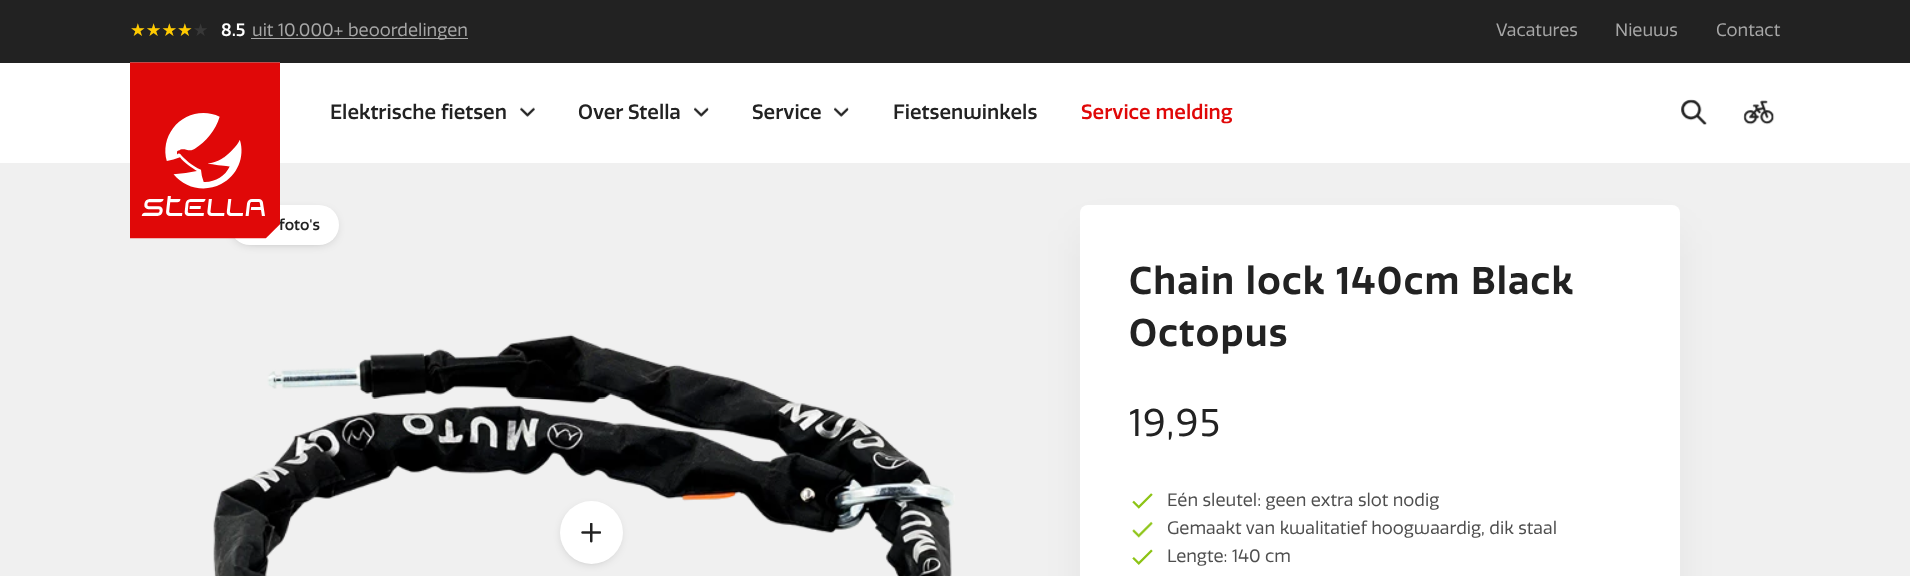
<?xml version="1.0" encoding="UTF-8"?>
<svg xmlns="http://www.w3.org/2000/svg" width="1910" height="576">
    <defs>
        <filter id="blur1" x="-50%" y="-200%" width="200%" height="500%"><feGaussianBlur stdDeviation="6"/></filter>
        <filter id="blur2" x="-50%" y="-200%" width="200%" height="500%"><feGaussianBlur stdDeviation="19"/></filter>
    </defs>
    <rect width="100%" height="100%" fill="#F0F0F0"/>
    <rect x="0" y="0" width="1910" height="63" fill="#222222"/>
    <text x="130" y="36" font-family="DejaVu Sans" font-size="17.5" fill="#383838">★★★★★</text>
    <text x="130" y="36" font-family="DejaVu Sans" font-size="17.5" fill="#FFCA00">★★★★</text>
    <text x="221" y="36" font-family="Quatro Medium" font-size="17.5" font-weight="500" fill="#FFFFFF">8.5</text>
    <rect x="251" y="38" width="217" height="1" fill="#A7A7A7"/>
    <text x="252" y="36" font-family="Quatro" font-size="17.5" fill="#A7A7A7">uit 10.000+ beoordelingen</text>
    <text x="1496" y="36" font-family="Quatro" font-size="17.5" fill="#A7A7A7">Vacatures</text>
    <text x="1615" y="36" font-family="Quatro" font-size="17.5" fill="#A7A7A7">Nieuws</text>
    <text x="1716" y="36" font-family="Quatro" font-size="17.5" fill="#A7A7A7">Contact</text>
    <rect x="0" y="63" width="1910" height="100" fill="#FFFFFF"/>
    <rect x="236" y="214" width="97" height="27" rx="13.5" fill="#222222" fill-opacity="0.4" filter="url(#blur1)"/>
    <rect x="230" y="205" width="109" height="40" rx="20" fill="#FFFFFF"/>
    <text x="279" y="230" font-family="Quatro Medium" font-size="15" font-weight="500" fill="#222222">foto's</text>
    <image x="130" y="62" width="150" height="177" href="img_01.png"/>
    <text x="330" y="119" font-family="Quatro Medium" font-size="20" font-weight="500" fill="#222222">Elektrische fietsen</text>
    <image x="520" y="107" width="15" height="10" href="img_02.png"/>
    <text x="578" y="119" font-family="Quatro Medium" font-size="20" font-weight="500" fill="#222222">Over Stella</text>
    <image x="694" y="107" width="15" height="10" href="img_03.png"/>
    <text x="752" y="119" font-family="Quatro Medium" font-size="20" font-weight="500" fill="#222222">Service</text>
    <image x="834" y="107" width="15" height="10" href="img_03.png"/>
    <text x="893" y="119" font-family="Quatro Medium" font-size="20" font-weight="500" fill="#222222">Fietsenwinkels</text>
    <text x="1081" y="119" font-family="Quatro Medium" font-size="20" font-weight="500" fill="#E00808">Service melding</text>
    <image x="1681" y="99" width="26" height="26" href="img_04.png"/>
    <image x="1743" y="100" width="32" height="25" href="img_05.png"/>
    <rect x="1080" y="230" width="600" height="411" rx="8" fill="#222222" fill-opacity="0.05" filter="url(#blur2)"/>
    <rect x="1080" y="205" width="600" height="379" rx="8" fill="#FFFFFF"/>
    <text font-family="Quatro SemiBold" font-size="37.5" font-weight="600" letter-spacing="1.25" fill="#222222">
        <tspan x="1129" y="294">Chain lock 140cm Black</tspan>
        <tspan x="1129" y="346">Octopus</tspan>
    </text>
    <text x="1129" y="436" font-family="Quatro" font-size="37.5" letter-spacing="1.25" fill="#222222">19,95</text>
    <image x="1132" y="493" width="21" height="16" href="img_06.png"/>
    <text x="1167" y="506" font-family="Quatro" font-size="17.5" fill="#4E4E4E">Eén sleutel: geen extra slot nodig</text>
    <image x="1132" y="521" width="21" height="17" href="img_07.png"/>
    <text x="1167" y="534" font-family="Quatro" font-size="17.5" fill="#4E4E4E">Gemaakt van kwalitatief hoogwaardig, dik staal</text>
    <image x="1132" y="549" width="21" height="16" href="img_08.png"/>
    <text x="1167" y="562" font-family="Quatro" font-size="17.5" fill="#4E4E4E">Lengte: 140 cm</text>
    <image x="213" y="334" width="742" height="242" href="img_09.png"/>
    <rect x="566" y="510" width="50" height="50" rx="25" fill="#222222" fill-opacity="0.4" filter="url(#blur1)"/>
    <circle cx="591.5" cy="532.5" r="31.5" fill="#FFFFFF"/>
    <image x="581" y="523" width="20" height="20" href="img_10.png"/>
</svg>
